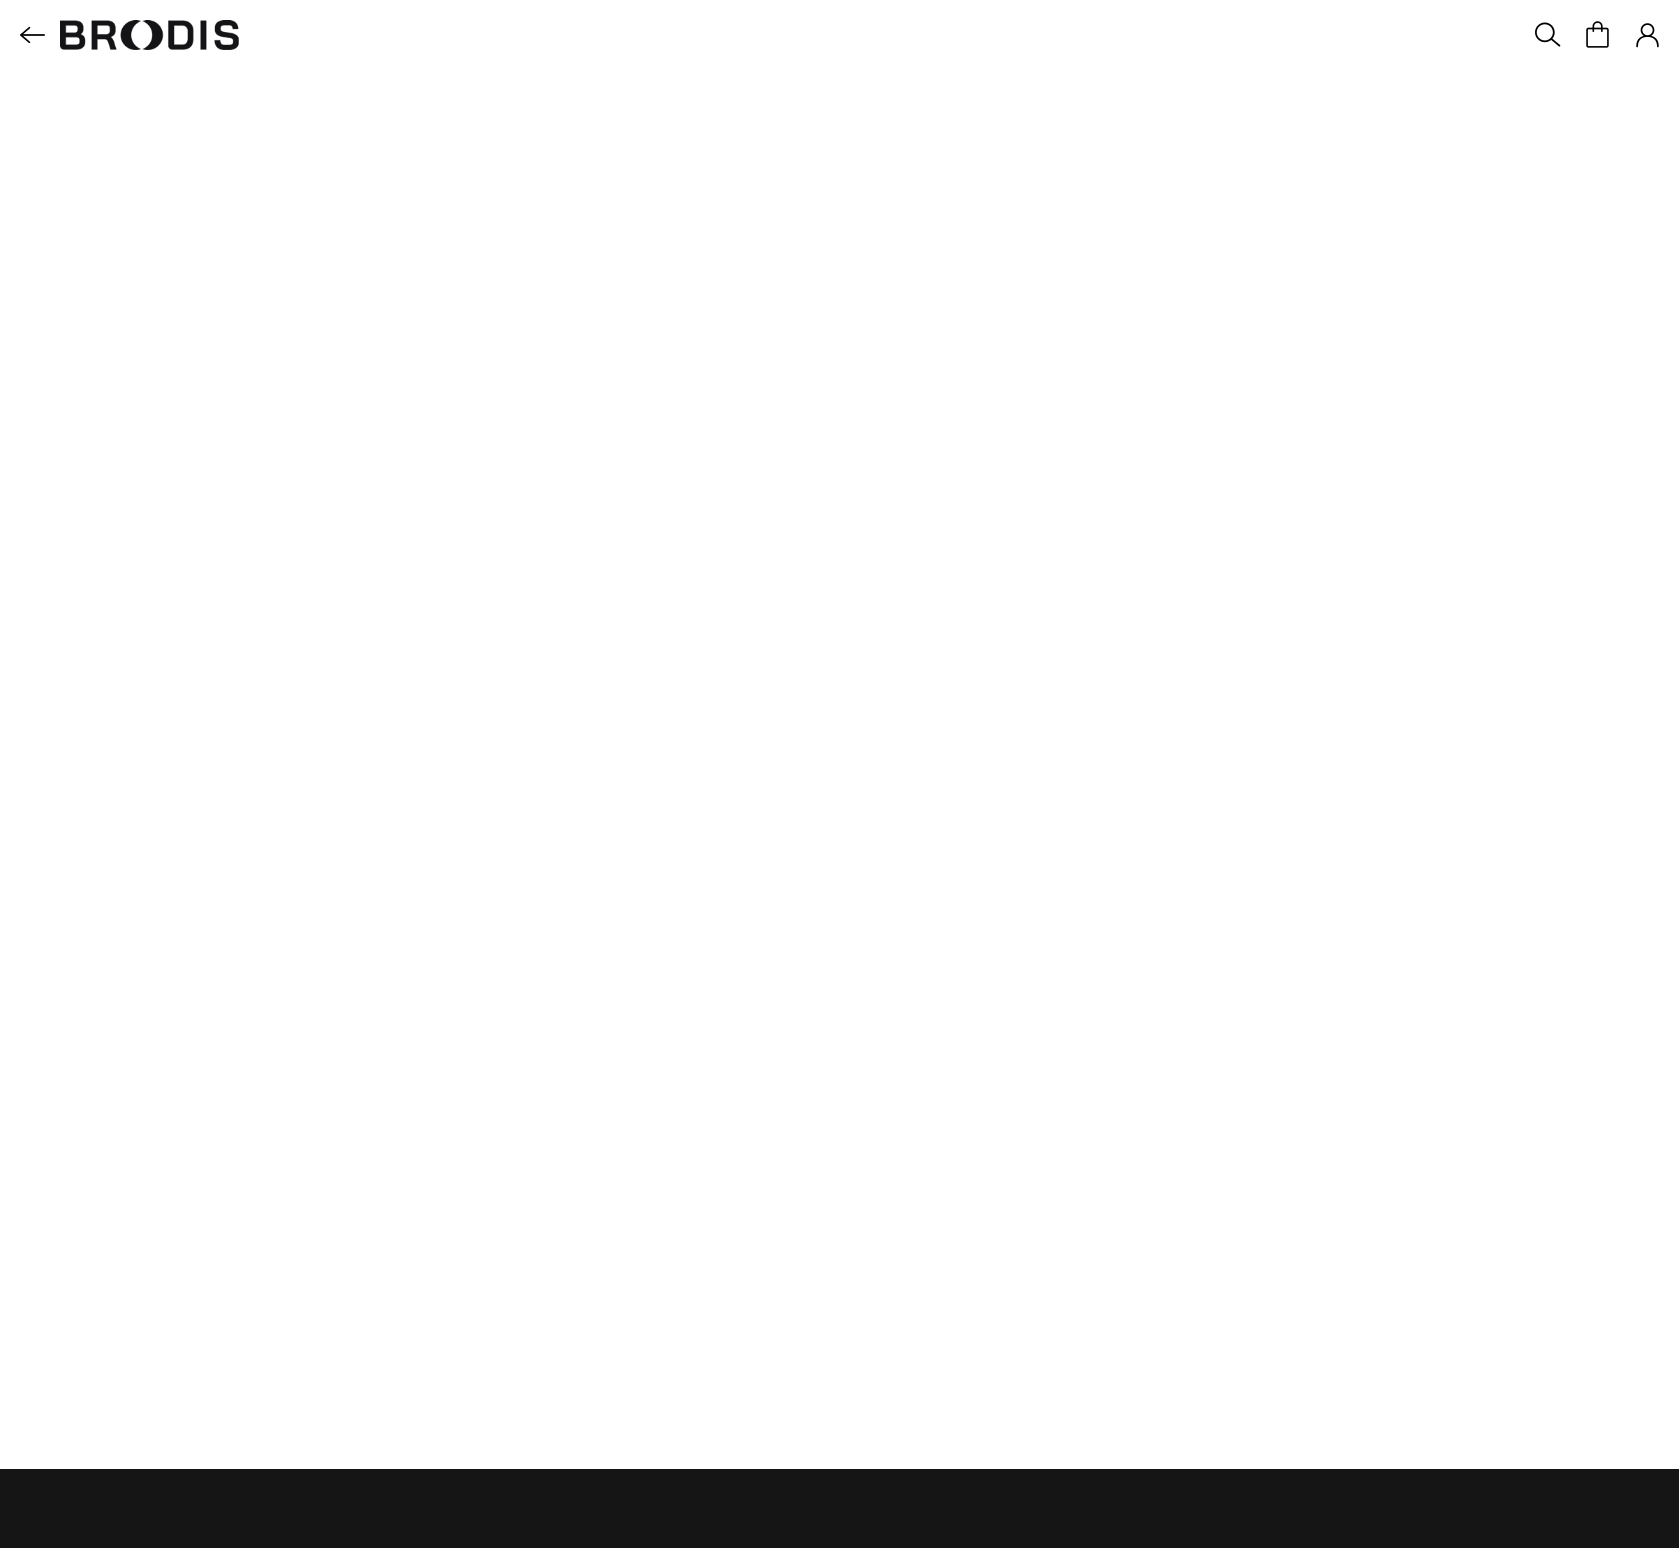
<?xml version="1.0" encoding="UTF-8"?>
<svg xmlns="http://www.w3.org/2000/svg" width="1679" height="1548">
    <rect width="100%" height="100%" fill="#FFFFFF"/>
    <image x="20" y="26" width="25" height="18" href="img_01.png"/>
    <image x="60" y="20" width="179" height="30" href="img_02.png"/>
    <image x="1535" y="22" width="26" height="25" href="img_03.png"/>
    <image x="1586" y="21" width="23" height="27" href="img_04.png"/>
    <image x="1636" y="23" width="23" height="25" href="img_05.png"/>
    <rect x="0" y="1469" width="1679" height="79" fill="#151515"/>
</svg>
